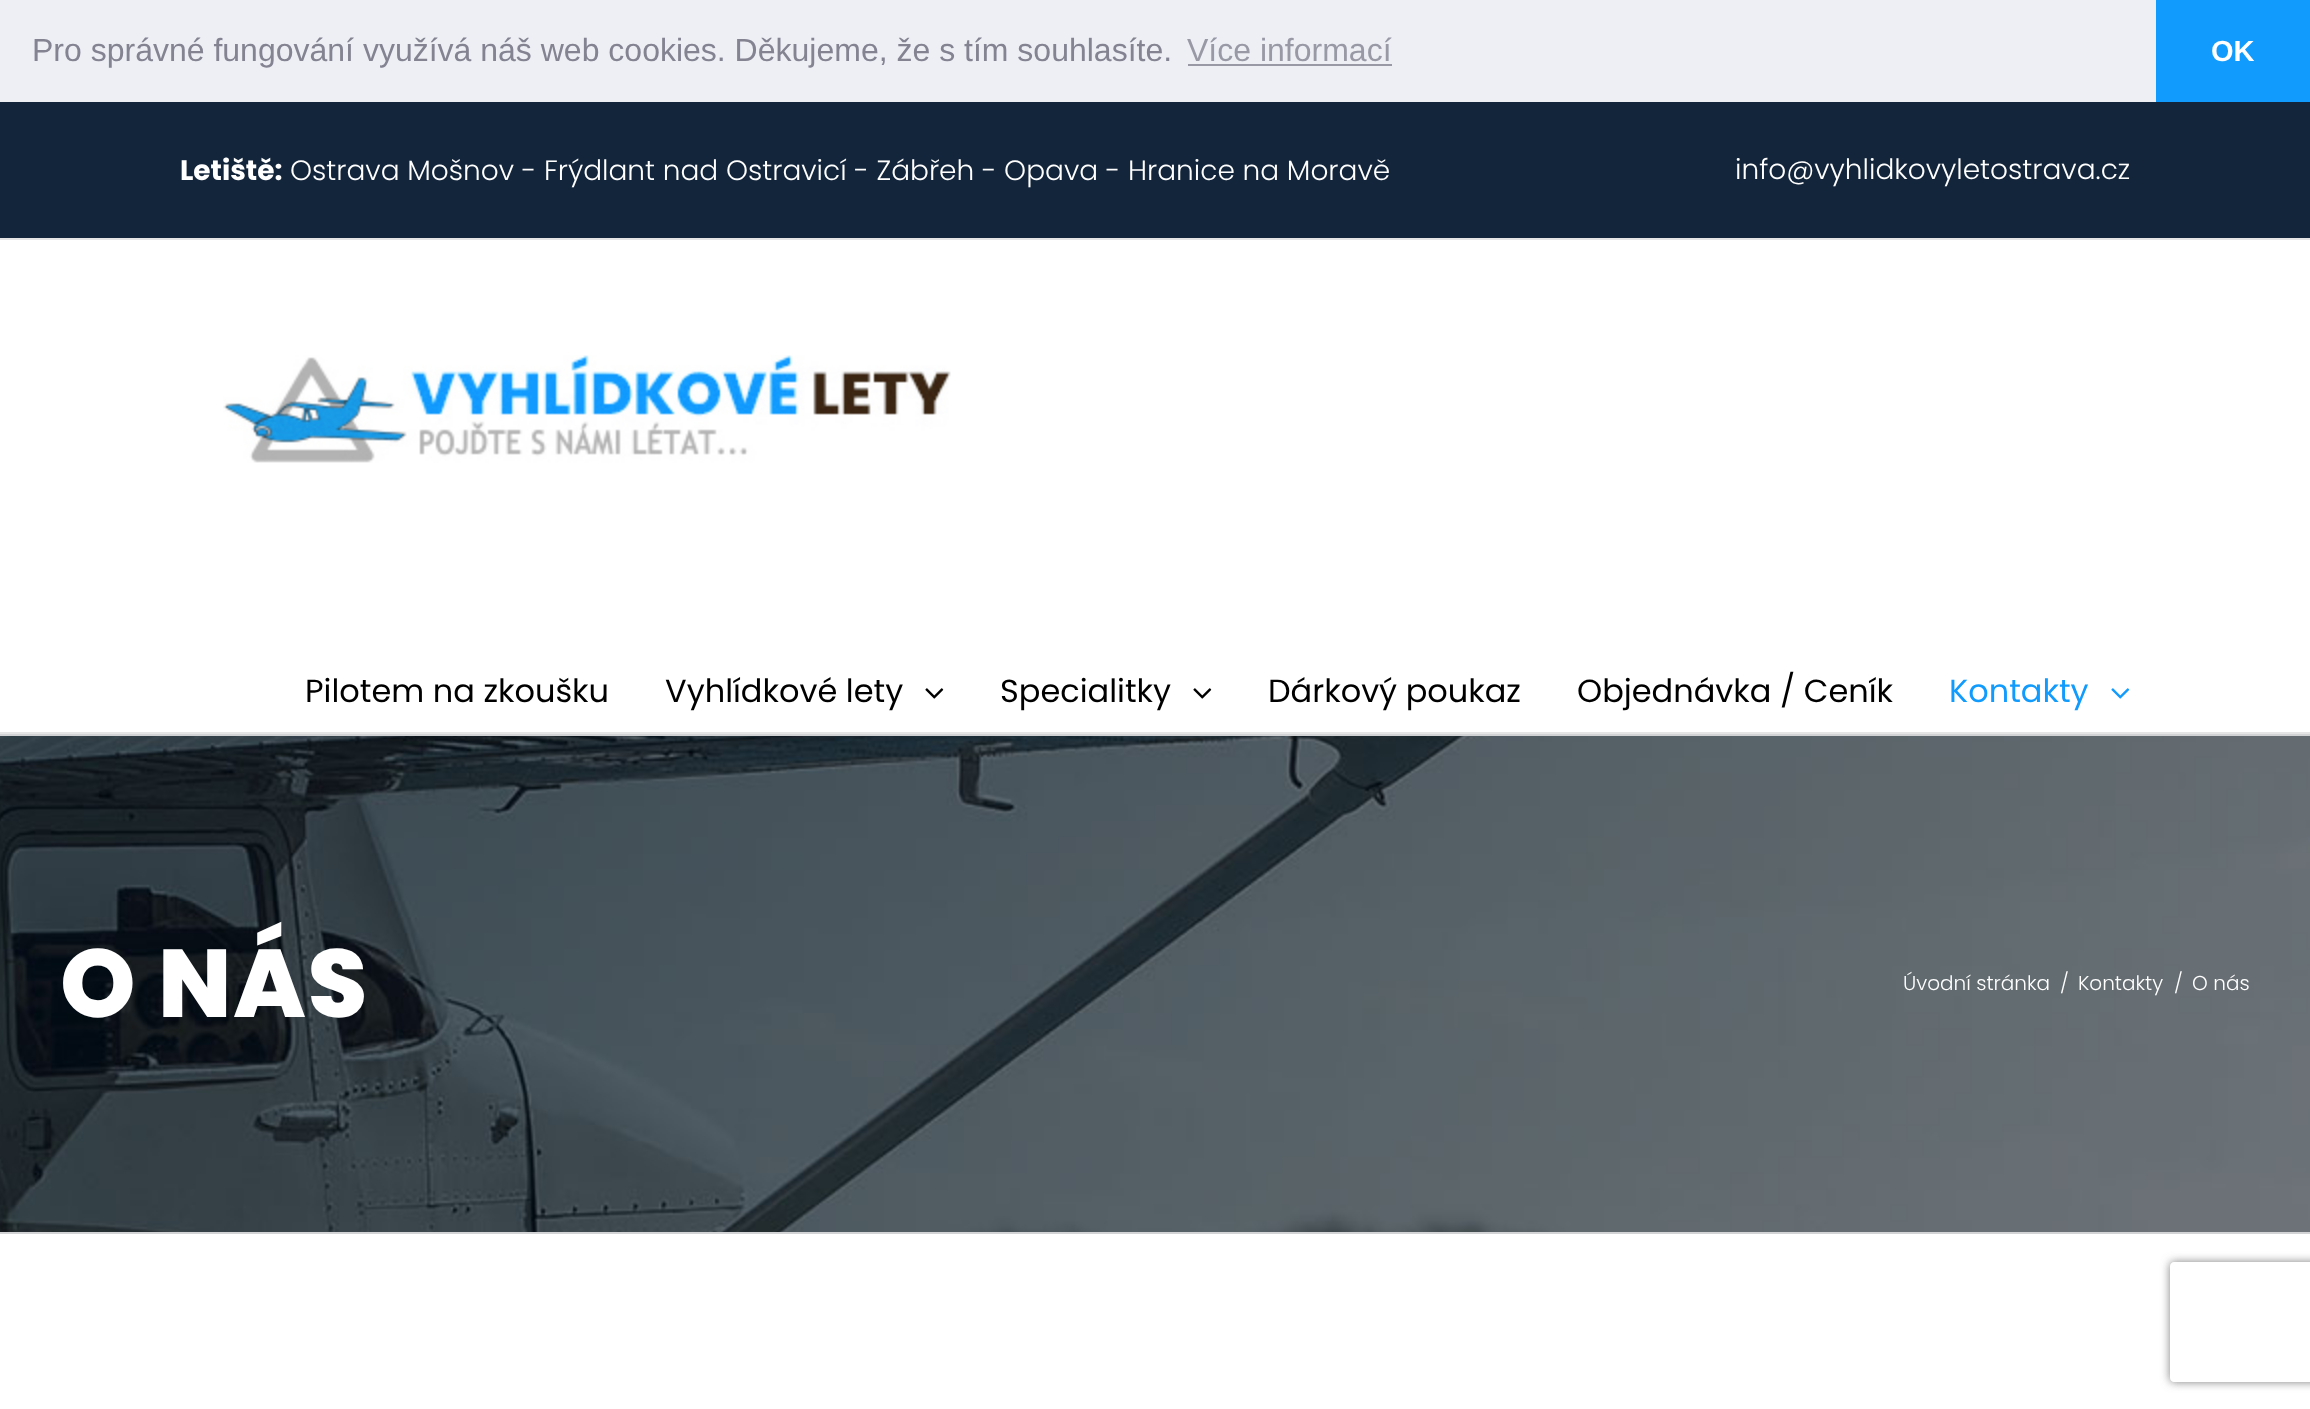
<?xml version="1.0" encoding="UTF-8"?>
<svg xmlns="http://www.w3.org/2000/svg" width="2310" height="1409">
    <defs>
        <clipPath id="clip1"><path d="M 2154 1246 H 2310 V 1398 H 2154 Z M 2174 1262 H 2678 C 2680 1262 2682 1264 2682 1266 V 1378 C 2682 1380 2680 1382 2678 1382 H 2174 C 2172 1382 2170 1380 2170 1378 V 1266 C 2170 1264 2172 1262 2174 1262 Z" clip-rule="evenodd"/></clipPath>
        <filter id="blur1" x="-50%" y="-200%" width="200%" height="500%"><feGaussianBlur stdDeviation="5"/></filter>
    </defs>
    <rect width="100%" height="100%" fill="#FFFFFF"/>
    <rect x="0" y="0" width="2156" height="102" fill="#EDEFF5"/>
    <text x="32" y="61" font-family="Liberation Sans" font-size="32" fill="#838391">Pro správné fungování využívá náš web cookies. Děkujeme, že s tím souhlasíte.</text>
    <text x="1187" y="61" font-family="Liberation Sans" font-size="32" fill="#9899A5">Více informací</text>
    <rect x="1188" y="64" width="204" height="2" fill="#9899A5"/>
    <rect x="2156" y="0" width="154" height="102" fill="#119BFD"/>
    <text x="2211" y="61" font-family="Liberation Sans" font-size="29" font-weight="700" fill="#FFFFFF">OK</text>
    <rect x="0" y="102" width="2310" height="136" fill="#13253B"/>
    <rect x="0" y="238" width="2310" height="2" fill="#E5E5E5"/>
    <text x="180" y="180" font-family="Poppins" font-size="28" font-weight="700" fill="#FFFFFF">Letiště:</text>
    <text x="290" y="180" font-family="Poppins" font-size="28" font-weight="300" fill="#FFFFFF">Ostrava Mošnov - Frýdlant nad Ostravicí - Zábřeh - Opava - Hranice na Moravě</text>
    <text x="1735" y="179" font-family="Poppins" font-size="28" font-weight="300" fill="#FFFFFF">info@vyhlidkovyletostrava.cz</text>
    <rect x="0" y="732" width="2310" height="2" fill="#E5E5E5"/>
    <image x="223" y="355" width="728" height="108" href="img_01.png"/>
    <text x="305" y="702" font-family="Poppins" font-size="32" fill="#000000">Pilotem na zkoušku</text>
    <text x="665" y="702" font-family="Poppins" font-size="32" fill="#000000">Vyhlídkové lety</text>
    <image x="925" y="688" width="19" height="11" href="img_02.png"/>
    <text x="1000" y="702" font-family="Poppins" font-size="32" fill="#000000">Specialitky</text>
    <image x="1193" y="688" width="19" height="11" href="img_02.png"/>
    <text x="1268" y="702" font-family="Poppins" font-size="32" fill="#000000">Dárkový poukaz</text>
    <text x="1577" y="702" font-family="Poppins" font-size="32" fill="#000000">Objednávka / Ceník</text>
    <text x="1949" y="702" font-family="Poppins" font-size="32" fill="#119BFD">Kontakty</text>
    <image x="2111" y="688" width="19" height="11" href="img_03.png"/>
    <image x="0" y="736" width="2310" height="496" href="img_04.png"/>
    <rect x="0" y="734" width="2310" height="2" fill="#D2D3D4"/>
    <rect x="0" y="1232" width="2310" height="2" fill="#D2D3D4"/>
    <text x="60" y="1017" font-family="Poppins" font-size="96" font-weight="800" letter-spacing="2" fill="#FFFFFF">O NÁS</text>
    <text x="1903" y="990" font-family="Poppins" font-size="20" font-weight="300" fill="#FFFFFF">Úvodní stránka</text>
    <text x="2060" y="990" font-family="Poppins" font-size="20" font-weight="300" fill="#FFFFFF">/</text>
    <text x="2078" y="990" font-family="Poppins" font-size="20" font-weight="300" fill="#FFFFFF">Kontakty</text>
    <text x="2174" y="990" font-family="Poppins" font-size="20" font-weight="300" fill="#FFFFFF">/</text>
    <text x="2192" y="990" font-family="Poppins" font-size="20" font-weight="300" fill="#FFFFFF">O nás</text>
    <g clip-path="url(#clip1)">
        <rect x="2170" y="1262" width="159" height="120" rx="4" fill="#808080" filter="url(#blur1)"/>
    </g>
</svg>
